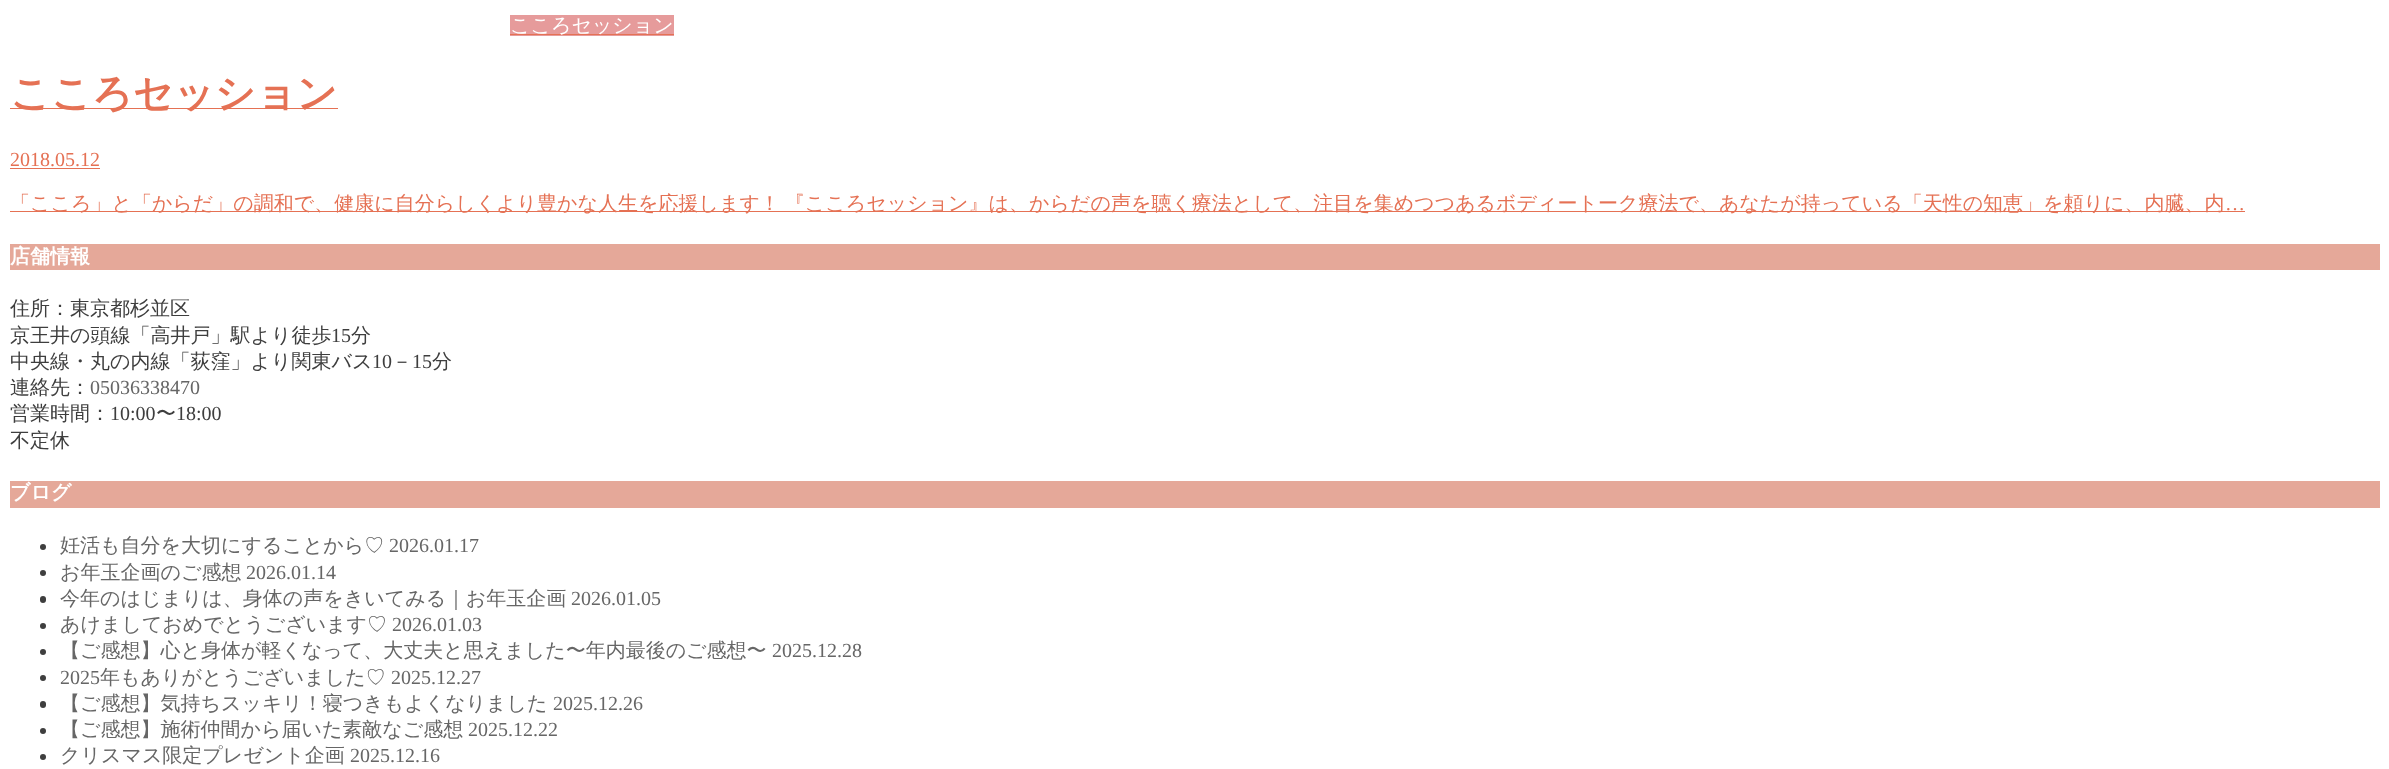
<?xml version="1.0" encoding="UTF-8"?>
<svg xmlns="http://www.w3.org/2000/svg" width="2389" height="769">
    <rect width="100%" height="100%" fill="#FFFFFF"/>
    <rect x="510" y="15" width="164" height="21" fill="#E69B9B"/>
    <rect x="510" y="34" width="164" height="1" fill="#E57154"/>
    <text x="510" y="32" font-family="WenQuanYi Zen Hei" font-size="20" font-weight="500" fill="#FFFFFF">こころセッション</text>
    <rect x="10" y="108" width="328" height="1" fill="#E57154"/>
    <text x="10" y="107" font-family="WenQuanYi Zen Hei" font-size="40" font-weight="700" fill="#E57154">こころセッション</text>
    <text x="10" y="166" font-family="Liberation Serif" font-size="20" fill="#E57154">2018.05.12</text>
    <rect x="10" y="168" width="90" height="1" fill="#E57154"/>
    <rect x="10" y="211" width="2235" height="1" fill="#E57154"/>
    <text x="10" y="210" word-spacing="-1" font-family="WenQuanYi Zen Hei" font-size="20" font-weight="500" fill="#E57154">「こころ」と「からだ」の調和で、健康に自分らしくより豊かな人生を応援します！ 『こころセッション』は、からだの声を聴く療法として、注目を集めつつあるボディートーク療法で、あなたが持っている「天性の知恵」を頼りに、内臓、内</text>
    <text x="2225" y="210" font-family="Liberation Serif" font-size="20" fill="#E57154">…</text>
    <rect x="10" y="244" width="2370" height="26" fill="#E5A899"/>
    <text x="10" y="263" font-family="WenQuanYi Zen Hei" font-size="20" font-weight="700" fill="#FFFFFF">店舗情報</text>
    <text font-family="WenQuanYi Zen Hei" font-size="20" font-weight="500" fill="#3E3E3E">
        <tspan x="10" y="315">住所：東京都杉並区</tspan>
        <tspan x="10" y="342">京王井の頭線「高井戸」駅より徒歩</tspan>
    </text>
    <text x="331" y="342" font-family="Liberation Serif" font-size="20" fill="#3E3E3E">15</text>
    <text x="351" y="342" font-family="WenQuanYi Zen Hei" font-size="20" font-weight="500" fill="#3E3E3E">分</text>
    <text x="10" y="368" font-family="WenQuanYi Zen Hei" font-size="20" font-weight="500" fill="#3E3E3E">中央線・丸の内線「荻窪」より関東バス</text>
    <text x="372" y="368" font-family="Liberation Serif" font-size="20" fill="#3E3E3E">10</text>
    <text x="392" y="368" font-family="WenQuanYi Zen Hei" font-size="20" font-weight="500" fill="#3E3E3E">－</text>
    <text x="412" y="368" font-family="Liberation Serif" font-size="20" fill="#3E3E3E">15</text>
    <text x="432" y="368" font-family="WenQuanYi Zen Hei" font-size="20" font-weight="500" fill="#3E3E3E">分</text>
    <text x="10" y="394" font-family="WenQuanYi Zen Hei" font-size="20" font-weight="500" fill="#3E3E3E">連絡先：</text>
    <text x="90" y="394" font-family="Liberation Serif" font-size="20" fill="#666666">05036338470</text>
    <text x="10" y="420" font-family="WenQuanYi Zen Hei" font-size="20" font-weight="500" fill="#3E3E3E">営業時間：</text>
    <text x="110" y="420" font-family="Liberation Serif" font-size="20" fill="#3E3E3E">10:00</text>
    <text x="156" y="420" font-family="WenQuanYi Zen Hei" font-size="20" font-weight="500" fill="#3E3E3E">〜</text>
    <text x="176" y="420" font-family="Liberation Serif" font-size="20" fill="#3E3E3E">18:00</text>
    <text x="10" y="447" font-family="WenQuanYi Zen Hei" font-size="20" font-weight="500" fill="#3E3E3E">不定休</text>
    <rect x="10" y="481" width="2370" height="27" fill="#E5A899"/>
    <text x="10" y="499" font-family="WenQuanYi Zen Hei" font-size="20" font-weight="700" fill="#FFFFFF">ブログ</text>
    <circle cx="43" cy="547" r="3" fill="#3E3E3E"/>
    <text x="60" y="552" font-family="WenQuanYi Zen Hei" font-size="20" font-weight="500" fill="#666666">妊活も自分を大切にすることから♡</text>
    <text x="389" y="552" font-family="Liberation Serif" font-size="20" fill="#666666">2026.01.17</text>
    <circle cx="43" cy="573" r="3" fill="#3E3E3E"/>
    <text x="60" y="579" font-family="WenQuanYi Zen Hei" font-size="20" font-weight="500" fill="#666666">お年玉企画のご感想</text>
    <text x="246" y="579" font-family="Liberation Serif" font-size="20" fill="#666666">2026.01.14</text>
    <rect x="40" y="596" width="6" height="7" rx="3" fill="#3E3E3E"/>
    <text x="60" y="605" font-family="WenQuanYi Zen Hei" font-size="20" font-weight="500" fill="#666666">今年のはじまりは、身体の声をきいてみる｜お年玉企画</text>
    <text x="571" y="605" font-family="Liberation Serif" font-size="20" fill="#666666">2026.01.05</text>
    <circle cx="43" cy="626" r="3" fill="#3E3E3E"/>
    <text x="60" y="631" font-family="WenQuanYi Zen Hei" font-size="20" font-weight="500" fill="#666666">あけましておめでとうございます♡</text>
    <text x="392" y="631" font-family="Liberation Serif" font-size="20" fill="#666666">2026.01.03</text>
    <circle cx="43" cy="652" r="3" fill="#3E3E3E"/>
    <text x="60" y="657" font-family="WenQuanYi Zen Hei" font-size="20" font-weight="500" fill="#666666">【ご感想】心と身体が軽くなって、大丈夫と思えました〜年内最後のご感想〜</text>
    <text x="772" y="657" font-family="Liberation Serif" font-size="20" fill="#666666">2025.12.28</text>
    <circle cx="43" cy="678" r="3" fill="#3E3E3E"/>
    <text x="60" y="684" font-family="Liberation Serif" font-size="20" fill="#666666">2025</text>
    <text x="100" y="684" font-family="WenQuanYi Zen Hei" font-size="20" font-weight="500" fill="#666666">年もありがとうございました♡</text>
    <text x="391" y="684" font-family="Liberation Serif" font-size="20" fill="#666666">2025.12.27</text>
    <rect x="40" y="701" width="6" height="7" rx="3" fill="#3E3E3E"/>
    <text x="60" y="710" font-family="WenQuanYi Zen Hei" font-size="20" font-weight="500" fill="#666666">【ご感想】気持ちスッキリ！寝つきもよくなりました</text>
    <text x="553" y="710" font-family="Liberation Serif" font-size="20" fill="#666666">2025.12.26</text>
    <circle cx="43" cy="731" r="3" fill="#3E3E3E"/>
    <text x="60" y="736" font-family="WenQuanYi Zen Hei" font-size="20" font-weight="500" fill="#666666">【ご感想】施術仲間から届いた素敵なご感想</text>
    <text x="468" y="736" font-family="Liberation Serif" font-size="20" fill="#666666">2025.12.22</text>
    <circle cx="43" cy="757" r="3" fill="#3E3E3E"/>
    <text x="60" y="762" font-family="WenQuanYi Zen Hei" font-size="20" font-weight="500" fill="#666666">クリスマス限定プレゼント企画</text>
    <text x="350" y="762" font-family="Liberation Serif" font-size="20" fill="#666666">2025.12.16</text>
</svg>
